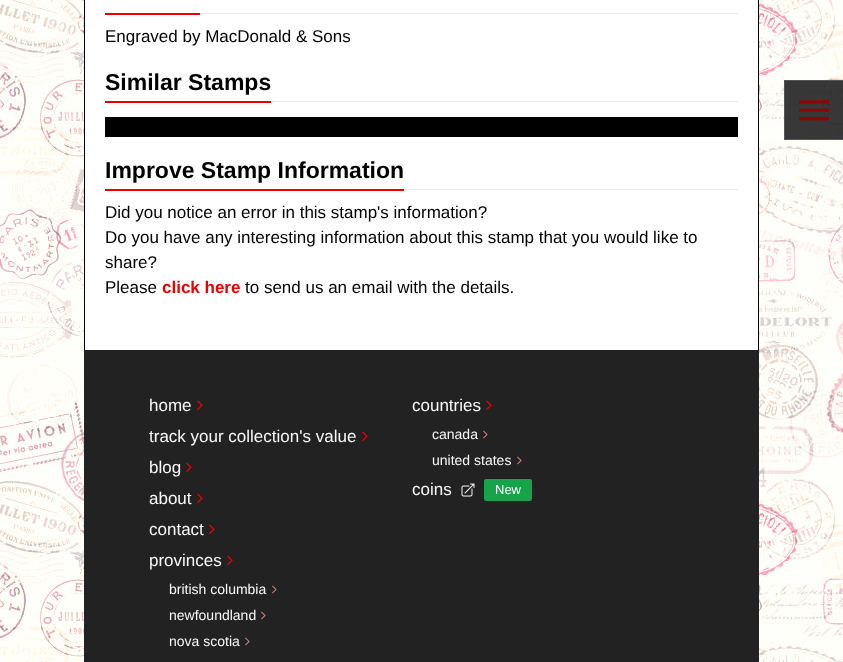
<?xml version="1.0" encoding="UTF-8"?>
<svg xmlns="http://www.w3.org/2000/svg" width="843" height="662">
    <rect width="100%" height="100%" fill="#FFFFFF"/>
    <image x="0" y="0" width="843" height="662" href="img_01.png"/>
    <rect x="85" y="0" width="673" height="350" fill="#FFFFFF"/>
    <rect x="758" y="0" width="1" height="350" fill="#000000"/>
    <rect x="84" y="0" width="1" height="350" fill="#000000"/>
    <rect x="200" y="13" width="538" height="1" fill="#E4E9F0"/>
    <rect x="105" y="13" width="95" height="2" fill="#EE0000"/>
    <text x="105" y="42" font-family="Liberation Sans" font-size="17" fill="#000000">Engraved by MacDonald &amp; Sons</text>
    <rect x="271" y="101" width="467" height="1" fill="#E4E9F0"/>
    <rect x="105" y="101" width="166" height="2" fill="#EE0000"/>
    <text x="105" y="90" font-family="Liberation Sans" font-size="23" font-weight="700" fill="#000000">Similar Stamps</text>
    <rect x="105" y="117" width="633" height="20" fill="#000000"/>
    <rect x="404" y="189" width="334" height="1" fill="#E4E9F0"/>
    <rect x="105" y="189" width="299" height="2" fill="#EE0000"/>
    <text x="105" y="178" font-family="Liberation Sans" font-size="23" font-weight="700" fill="#000000">Improve Stamp Information</text>
    <text font-family="Liberation Sans" font-size="17" fill="#000000">
        <tspan x="105" y="218">Did you notice an error in this stamp's information?</tspan>
        <tspan x="105" y="243">Do you have any interesting information about this stamp that you would like to</tspan>
        <tspan x="105" y="268">share?</tspan>
        <tspan x="105" y="293">Please</tspan>
    </text>
    <text x="162" y="293" font-family="Liberation Sans" font-size="17" font-weight="700" fill="#EE0000">click here</text>
    <text x="245" y="293" font-family="Liberation Sans" font-size="17" fill="#000000">to send us an email with the details.</text>
    <rect x="84" y="350" width="675" height="312" fill="#222222"/>
    <text x="149" y="411" font-family="Liberation Sans" font-size="17" fill="#F9F9F9">home</text>
    <image x="197" y="400" width="6" height="10" href="img_02.png"/>
    <text x="149" y="442" font-family="Liberation Sans" font-size="17" fill="#F9F9F9">track your collection's value</text>
    <image x="362" y="431" width="6" height="10" href="img_02.png"/>
    <text x="149" y="473" font-family="Liberation Sans" font-size="17" fill="#F9F9F9">blog</text>
    <image x="186" y="462" width="6" height="10" href="img_02.png"/>
    <text x="149" y="504" font-family="Liberation Sans" font-size="17" fill="#F9F9F9">about</text>
    <image x="197" y="493" width="6" height="10" href="img_02.png"/>
    <text x="149" y="535" font-family="Liberation Sans" font-size="17" fill="#F9F9F9">contact</text>
    <image x="209" y="524" width="6" height="10" href="img_02.png"/>
    <text x="412" y="411" font-family="Liberation Sans" font-size="17" fill="#F9F9F9">countries</text>
    <image x="486" y="400" width="6" height="10" href="img_02.png"/>
    <text x="432" y="439" font-family="Liberation Sans" font-size="14" fill="#F9F9F9">canada</text>
    <image x="483" y="430" width="5" height="9" href="img_03.png"/>
    <text x="432" y="465" font-family="Liberation Sans" font-size="14" fill="#F9F9F9">united states</text>
    <image x="517" y="456" width="5" height="9" href="img_03.png"/>
    <text x="412" y="495" font-family="Liberation Sans" font-size="17" fill="#F9F9F9">coins</text>
    <image x="461" y="483" width="14" height="14" href="img_04.png"/>
    <rect x="484" y="479" width="48" height="22" rx="2" fill="#16A34A"/>
    <text x="495" y="494" font-family="Liberation Sans" font-size="13" fill="#FFFFFF">New</text>
    <text x="149" y="566" font-family="Liberation Sans" font-size="17" fill="#F9F9F9">provinces</text>
    <image x="227" y="555" width="6" height="10" href="img_02.png"/>
    <text x="169" y="594" font-family="Liberation Sans" font-size="14" fill="#F9F9F9">british columbia</text>
    <image x="272" y="585" width="5" height="9" href="img_03.png"/>
    <text x="169" y="620" font-family="Liberation Sans" font-size="14" fill="#F9F9F9">newfoundland</text>
    <image x="261" y="611" width="5" height="9" href="img_03.png"/>
    <text x="169" y="646" font-family="Liberation Sans" font-size="14" fill="#F9F9F9">nova scotia</text>
    <image x="245" y="637" width="5" height="9" href="img_03.png"/>
    <rect x="784" y="80" width="59" height="59" fill="#222222" fill-opacity="0.9"/>
    <rect x="784" y="80" width="59" height="1" fill="#595959" fill-opacity="0.9"/>
    <rect x="784" y="139" width="59" height="1" fill="#565656"/>
    <rect x="784" y="80" width="1" height="60" fill="#595959" fill-opacity="0.9"/>
    <image x="799" y="100" width="30" height="21" href="img_05.png"/>
</svg>
